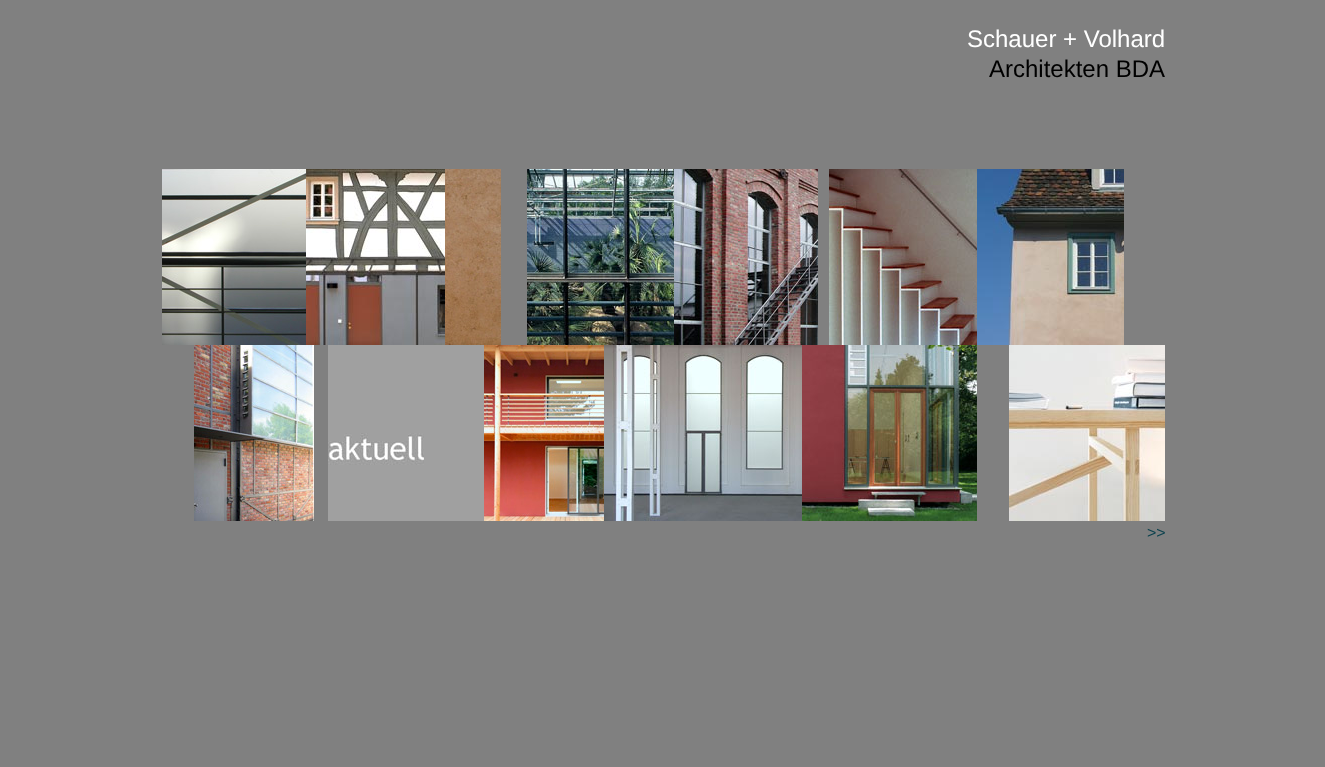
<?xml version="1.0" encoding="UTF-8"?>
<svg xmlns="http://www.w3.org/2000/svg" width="1325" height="767">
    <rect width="100%" height="100%" fill="#808080"/>
    <text x="967" y="47" font-family="Liberation Sans" font-size="24" fill="#FFFFFF">Schauer + Volhard</text>
    <text x="989" y="77" font-family="Liberation Sans" font-size="24" fill="#000000">Architekten BDA</text>
    <image x="162" y="169" width="144" height="176" href="img_01.png"/>
    <image x="306" y="169" width="139" height="176" href="img_02.png"/>
    <image x="445" y="169" width="56" height="176" href="img_03.png"/>
    <image x="527" y="169" width="147" height="176" href="img_04.png"/>
    <image x="674" y="169" width="144" height="176" href="img_05.png"/>
    <image x="829" y="169" width="148" height="176" href="img_06.png"/>
    <image x="977" y="169" width="147" height="176" href="img_07.png"/>
    <image x="194" y="345" width="120" height="176" href="img_08.png"/>
    <image x="328" y="345" width="156" height="176" href="img_09.png"/>
    <image x="484" y="345" width="120" height="176" href="img_10.png"/>
    <image x="604" y="345" width="198" height="176" href="img_11.png"/>
    <image x="802" y="345" width="175" height="176" href="img_12.png"/>
    <image x="1009" y="345" width="156" height="176" href="img_13.png"/>
    <text x="1147" y="538" font-family="Liberation Sans" font-size="16" fill="#0C424E">&gt;&gt;</text>
</svg>
